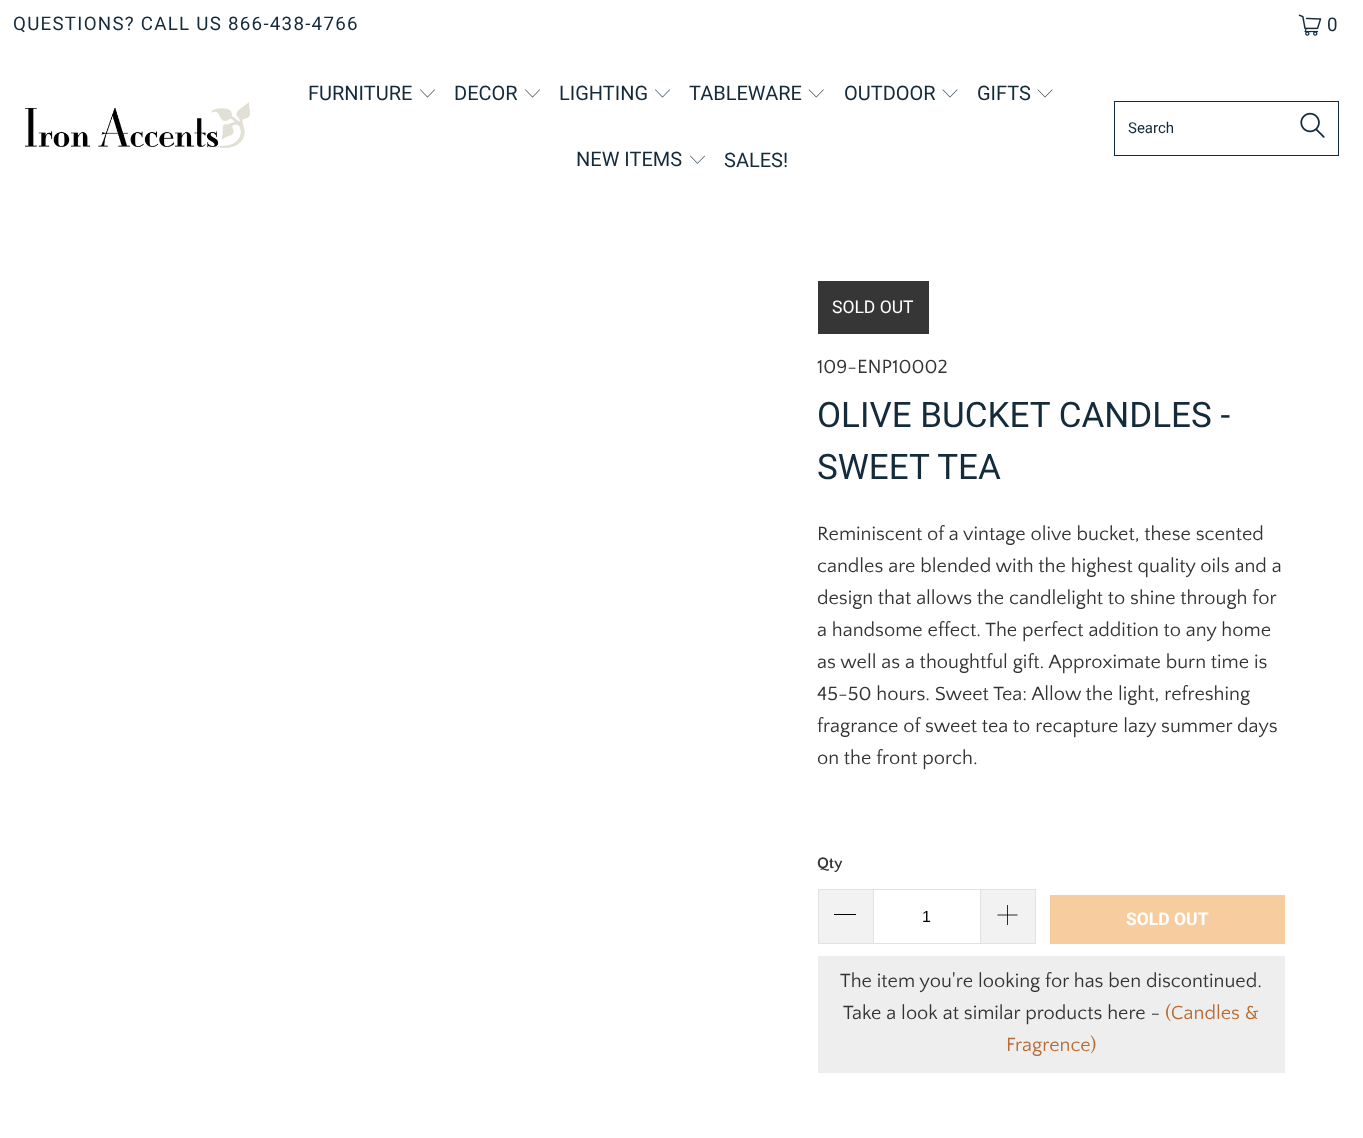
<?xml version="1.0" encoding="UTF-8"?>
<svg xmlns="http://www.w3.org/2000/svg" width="1363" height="1138">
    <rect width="100%" height="100%" fill="#FFFFFF"/>
    <text x="13" y="30" font-family="Roboto" font-size="18.75" letter-spacing="1.25" fill="#142B3B">QUESTIONS? CALL US 866-438-4766</text>
    <image x="1298" y="14" width="24" height="22" href="img_01.png"/>
    <text x="1327" y="31" font-family="Roboto" font-size="18.75" letter-spacing="1.25" fill="#142B3B">0</text>
    <image x="25" y="102" width="225" height="46" href="img_02.png"/>
    <text x="308" y="100" font-family="Roboto" font-size="20" fill="#142B3B">FURNITURE</text>
    <image x="420" y="89" width="15" height="9" href="img_03.png"/>
    <text x="454" y="100" font-family="Roboto" font-size="20" fill="#142B3B">DECOR</text>
    <image x="525" y="89" width="15" height="9" href="img_03.png"/>
    <text x="559" y="100" font-family="Roboto" font-size="20" fill="#142B3B">LIGHTING</text>
    <image x="655" y="89" width="15" height="9" href="img_03.png"/>
    <text x="689" y="100" font-family="Roboto" font-size="20" fill="#142B3B">TABLEWARE</text>
    <image x="808" y="89" width="16" height="9" href="img_04.png"/>
    <text x="844" y="100" font-family="Roboto" font-size="20" fill="#142B3B">OUTDOOR</text>
    <image x="942" y="89" width="16" height="9" href="img_05.png"/>
    <text x="977" y="100" font-family="Roboto" font-size="20" fill="#142B3B">GIFTS</text>
    <image x="1037" y="89" width="16" height="9" href="img_05.png"/>
    <text x="576" y="166" font-family="Roboto" font-size="20" fill="#142B3B">NEW ITEMS</text>
    <image x="690" y="155" width="15" height="9" href="img_06.png"/>
    <text x="724" y="167" font-family="Roboto" font-size="20" fill="#142B3B">SALES!</text>
    <rect x="1114.5" y="101.5" width="224" height="54" fill="none" stroke="#142B3B"/>
    <text x="1128" y="133" font-family="Roboto" font-size="15" fill="#142B3B">Search</text>
    <image x="1300" y="112" width="25" height="26" href="img_07.png"/>
    <rect x="818" y="281" width="111" height="53" fill="#363636"/>
    <text x="832" y="313" font-family="Roboto" font-size="17.5" fill="#FFFFFF">SOLD OUT</text>
    <text x="817" y="373" font-family="Quattrocento Sans" font-size="20" fill="#333333">109-ENP10002</text>
    <text font-family="Roboto" font-size="35" fill="#142B3B">
        <tspan x="817" y="427">OLIVE BUCKET CANDLES -</tspan>
        <tspan x="817" y="479">SWEET TEA</tspan>
    </text>
    <text font-family="Quattrocento Sans" font-size="20" fill="#333333">
        <tspan x="817" y="540">Reminiscent of a vintage olive bucket, these scented</tspan>
        <tspan x="817" y="572">candles are blended with the highest quality oils and a</tspan>
        <tspan x="817" y="604">design that allows the candlelight to shine through for</tspan>
        <tspan x="817" y="636">a handsome effect. The perfect addition to any home</tspan>
        <tspan x="817" y="668">as well as a thoughtful gift. Approximate burn time is</tspan>
        <tspan x="817" y="700">45-50 hours. Sweet Tea: Allow the light, refreshing</tspan>
        <tspan x="817" y="732">fragrance of sweet tea to recapture lazy summer days</tspan>
        <tspan x="817" y="764">on the front porch.</tspan>
    </text>
    <text x="817" y="868" font-family="Quattrocento Sans" font-size="16" font-weight="700" fill="#333333">Qty</text>
    <rect x="819" y="890" width="54" height="53" fill="#F2F2F2"/>
    <rect x="818" y="889" width="55" height="1" fill="#E2E2E2"/>
    <rect x="818" y="943" width="55" height="1" fill="#E2E2E2"/>
    <rect x="818" y="889" width="1" height="55" fill="#E2E2E2"/>
    <rect x="834" y="914" width="22" height="1" fill="#000000"/>
    <rect x="873.5" y="889.5" width="107" height="54" fill="none" stroke="#E2E2E2"/>
    <text x="922" y="922" font-family="Liberation Sans" font-size="16" fill="#000000">1</text>
    <rect x="981" y="890" width="54" height="53" fill="#F2F2F2"/>
    <rect x="981" y="889" width="55" height="1" fill="#E2E2E2"/>
    <rect x="1035" y="889" width="1" height="55" fill="#E2E2E2"/>
    <rect x="981" y="943" width="55" height="1" fill="#E2E2E2"/>
    <image x="997" y="905" width="21" height="20" href="img_08.png"/>
    <rect x="1050" y="895" width="235" height="49" fill="#F7CDA0"/>
    <text x="1126" y="925" font-family="Roboto" font-size="17.5" font-weight="700" fill="#FFFFFF">SOLD OUT</text>
    <rect x="818" y="956" width="467" height="117" fill="#EEEEEE"/>
    <text x="840" y="987" font-family="Quattrocento Sans" font-size="20" fill="#333333">The item you're looking for has ben discontinued.</text>
    <text x="843" y="1019" font-family="Quattrocento Sans" font-size="20" fill="#333333">Take a look at similar products here -</text>
    <text x="1165" y="1019" font-family="Quattrocento Sans" font-size="20" fill="#B66C34">(Candles &amp;</text>
    <text x="1006" y="1051" font-family="Quattrocento Sans" font-size="20" fill="#B66C34">Fragrence)</text>
</svg>
